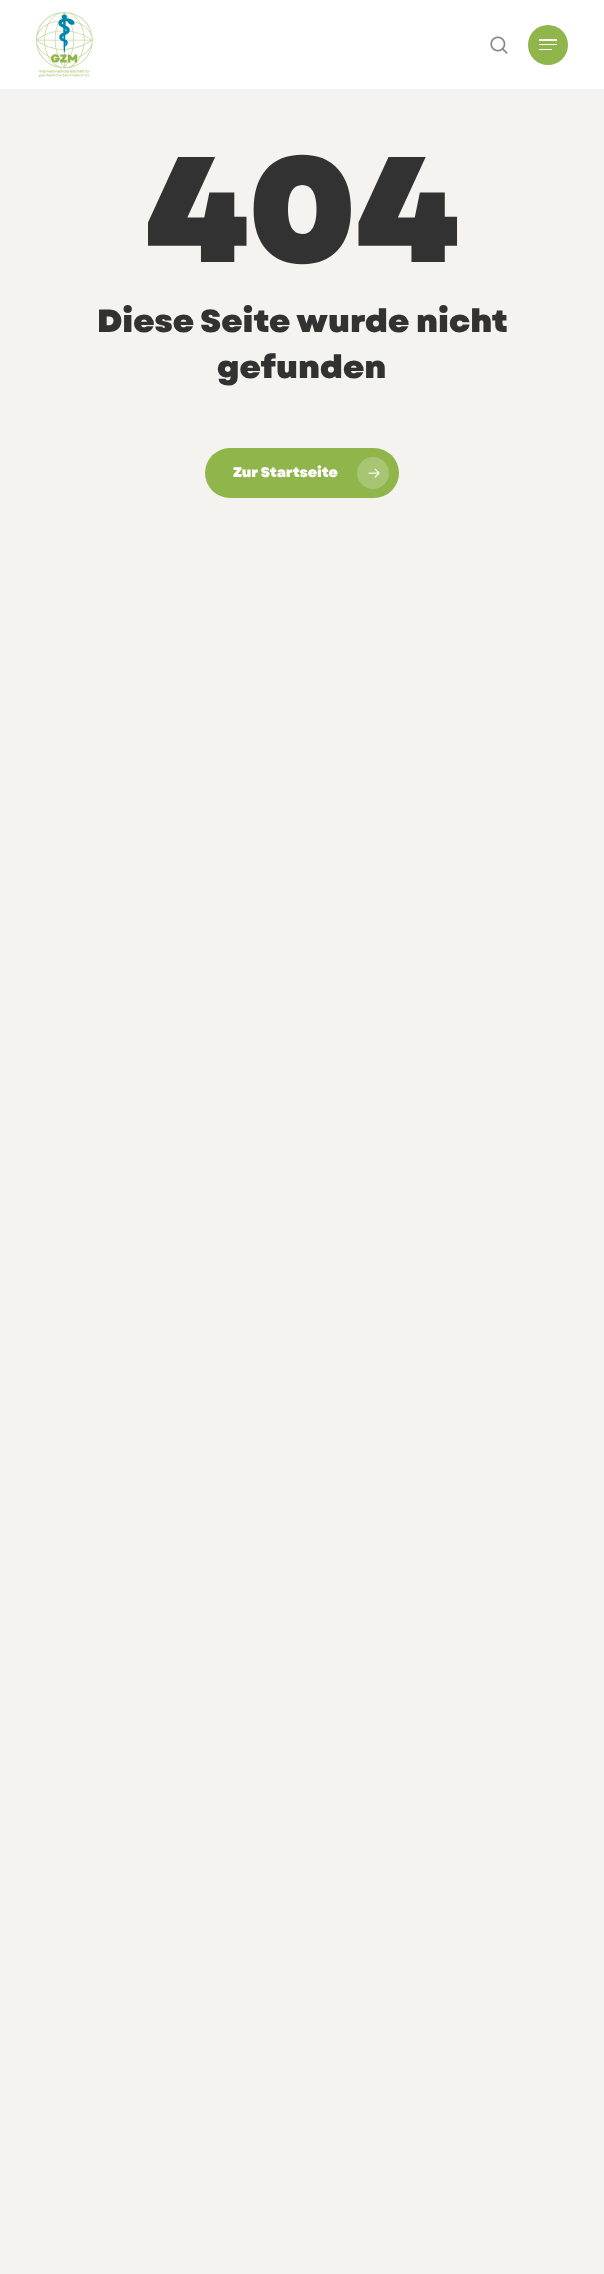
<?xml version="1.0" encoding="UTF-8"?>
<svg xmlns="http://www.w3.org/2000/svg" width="604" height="2274">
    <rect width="100%" height="100%" fill="#F5F3EF"/>
    <rect x="0" y="0" width="604" height="89" fill="#FFFFFF"/>
    <image x="36" y="12" width="57" height="65" href="img_01.png"/>
    <image x="490" y="36" width="18" height="18" href="img_02.png"/>
    <circle cx="548" cy="45" r="20" fill="#90B54B"/>
    <rect x="539" y="39" width="18" height="2" fill="#FFFFFF"/>
    <rect x="539" y="49" width="13" height="1" fill="#FFFFFF"/>
    <rect x="539" y="44" width="18" height="1" fill="#FFFFFF"/>
    <text x="145" y="262" font-family="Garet" font-size="150" font-weight="900" fill="#323232">404</text>
    <text x="97" y="332" font-family="Garet" font-size="32" font-weight="900" fill="#323232">Diese Seite wurde nicht</text>
    <text x="217" y="378" font-family="Garet" font-size="32" font-weight="900" fill="#323232">gefunden</text>
    <rect x="205" y="448" width="194" height="50" rx="25" fill="#90B54B"/>
    <text x="233" y="477" font-family="Garet" font-size="14" font-weight="900" fill="#FFFFFF">Zur Startseite</text>
    <circle cx="373" cy="473" r="16" fill="#A8C573"/>
    <image x="368" y="468" width="12" height="10" href="img_03.png"/>
</svg>
